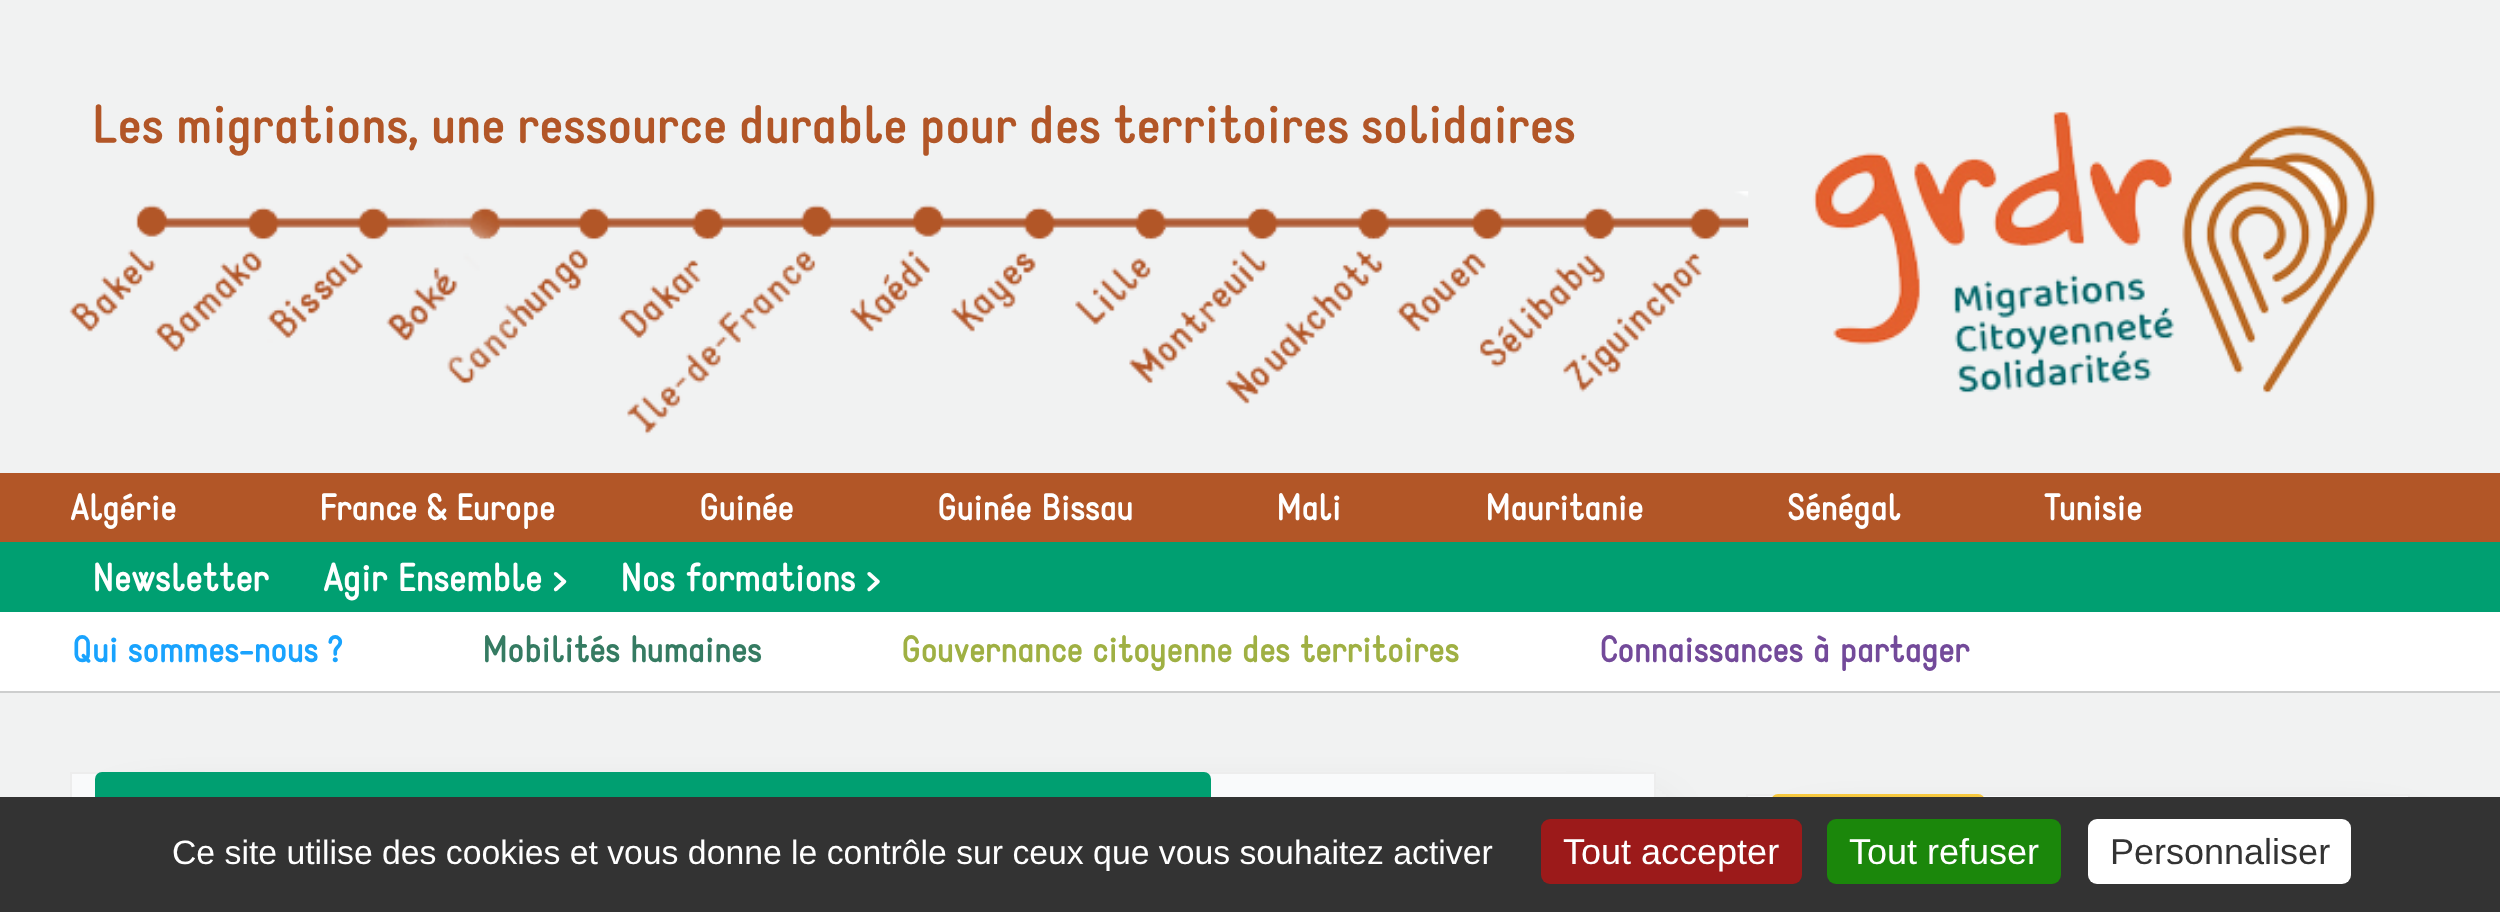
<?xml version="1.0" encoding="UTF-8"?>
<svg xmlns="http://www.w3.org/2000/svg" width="2500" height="912">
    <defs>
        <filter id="blur1" x="-50%" y="-200%" width="200%" height="500%"><feGaussianBlur stdDeviation="34"/></filter>
        <linearGradient id="g1" gradientUnits="userSpaceOnUse" x1="1878" y1="794" x2="1878" y2="860"><stop offset="0" stop-color="#F7C93E"/><stop offset="1" stop-color="#D2A346"/></linearGradient>
    </defs>
    <rect width="100%" height="100%" fill="#F1F2F2"/>
    <text x="92" y="143" font-family="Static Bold" font-size="54" font-weight="700" fill="#B25627">Les migrations, une ressource durable pour des territoires solidaires</text>
    <image x="1813" y="110" width="564" height="284" href="img_01.png"/>
    <image x="69" y="191" width="1680" height="244" href="img_02.png"/>
    <rect x="0" y="473" width="2500" height="69" fill="#B25627"/>
    <text x="70" y="520" font-family="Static" font-size="36" font-weight="700" fill="#FFFFFF">Algérie</text>
    <text x="319" y="520" font-family="Static" font-size="36" font-weight="700" fill="#FFFFFF">France &amp; Europe</text>
    <text x="699" y="520" font-family="Static" font-size="36" font-weight="700" fill="#FFFFFF">Guinée</text>
    <text x="937" y="520" font-family="Static" font-size="36" font-weight="700" fill="#FFFFFF">Guinée Bissau</text>
    <text x="1276" y="520" font-family="Static" font-size="36" font-weight="700" fill="#FFFFFF">Mali</text>
    <text x="1485" y="520" font-family="Static" font-size="36" font-weight="700" fill="#FFFFFF">Mauritanie</text>
    <text x="1787" y="520" font-family="Static" font-size="36" font-weight="700" fill="#FFFFFF">Sénégal</text>
    <text x="2044" y="520" font-family="Static" font-size="36" font-weight="700" fill="#FFFFFF">Tunisie</text>
    <rect x="0" y="542" width="2500" height="70" fill="#009F71"/>
    <text x="92" y="591" font-family="Static" font-size="38.25" font-weight="700" fill="#FFFFFF">Newsletter</text>
    <text x="323" y="591" font-family="Static" font-size="38.25" font-weight="700" fill="#FFFFFF">Agir Ensemble &gt;</text>
    <text x="620" y="591" font-family="Static" font-size="38.25" font-weight="700" fill="#FFFFFF">Nos formations &gt;</text>
    <rect x="0" y="612" width="2500" height="79" fill="#FFFFFF"/>
    <rect x="0" y="691" width="2500" height="2" fill="#CDCECE"/>
    <text x="72" y="662" font-family="Static" font-size="36" font-weight="700" fill="#19A3FE">Qui sommes-nous ?</text>
    <text x="482" y="662" font-family="Static" font-size="36" font-weight="700" fill="#357B62">Mobilités humaines</text>
    <text x="901" y="662" font-family="Static" font-size="36" font-weight="700" fill="#9FB043">Gouvernance citoyenne des territoires</text>
    <text x="1599" y="662" font-family="Static" font-size="36" font-weight="700" fill="#734A9A">Connaissances à partager</text>
    <rect x="137" y="839" width="1497" height="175" fill="#656565" filter="url(#blur1)"/>
    <rect x="72" y="774" width="1582" height="23" fill="#F9FAFB"/>
    <rect x="71" y="773" width="1584" height="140" fill="none" stroke="#EDEDED" stroke-width="2"/>
    <rect x="95" y="772" width="1116" height="65" rx="7" fill="#009F71"/>
    <rect x="1814" y="862" width="573" height="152" fill="#656565" filter="url(#blur1)"/>
    <rect x="1748" y="796" width="660" height="1" fill="#F9FAFB"/>
    <rect x="1747" y="795" width="662" height="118" fill="none" stroke="#EDEDED" stroke-width="2"/>
    <rect x="1771" y="794" width="214" height="66" rx="7" fill="url(#g1)"/>
    <rect x="0" y="797" width="2500" height="115" fill="#333333"/>
    <text x="172" y="864" font-family="Liberation Sans" font-size="33.75" fill="#FFFFFF">Ce site utilise des cookies et vous donne le contrôle sur ceux que vous souhaitez activer</text>
    <rect x="1541" y="819" width="261" height="65" rx="9" fill="#9C1A1A"/>
    <text x="1563" y="864" font-family="Liberation Sans" font-size="36" fill="#FFFFFF">Tout accepter</text>
    <rect x="1827" y="819" width="234" height="65" rx="9" fill="#1B870B"/>
    <text x="1849" y="864" font-family="Liberation Sans" font-size="36" fill="#FFFFFF">Tout refuser</text>
    <rect x="2088" y="819" width="263" height="65" rx="9" fill="#FFFFFF"/>
    <text x="2110" y="864" font-family="Liberation Sans" font-size="36" fill="#333333">Personnaliser</text>
</svg>
